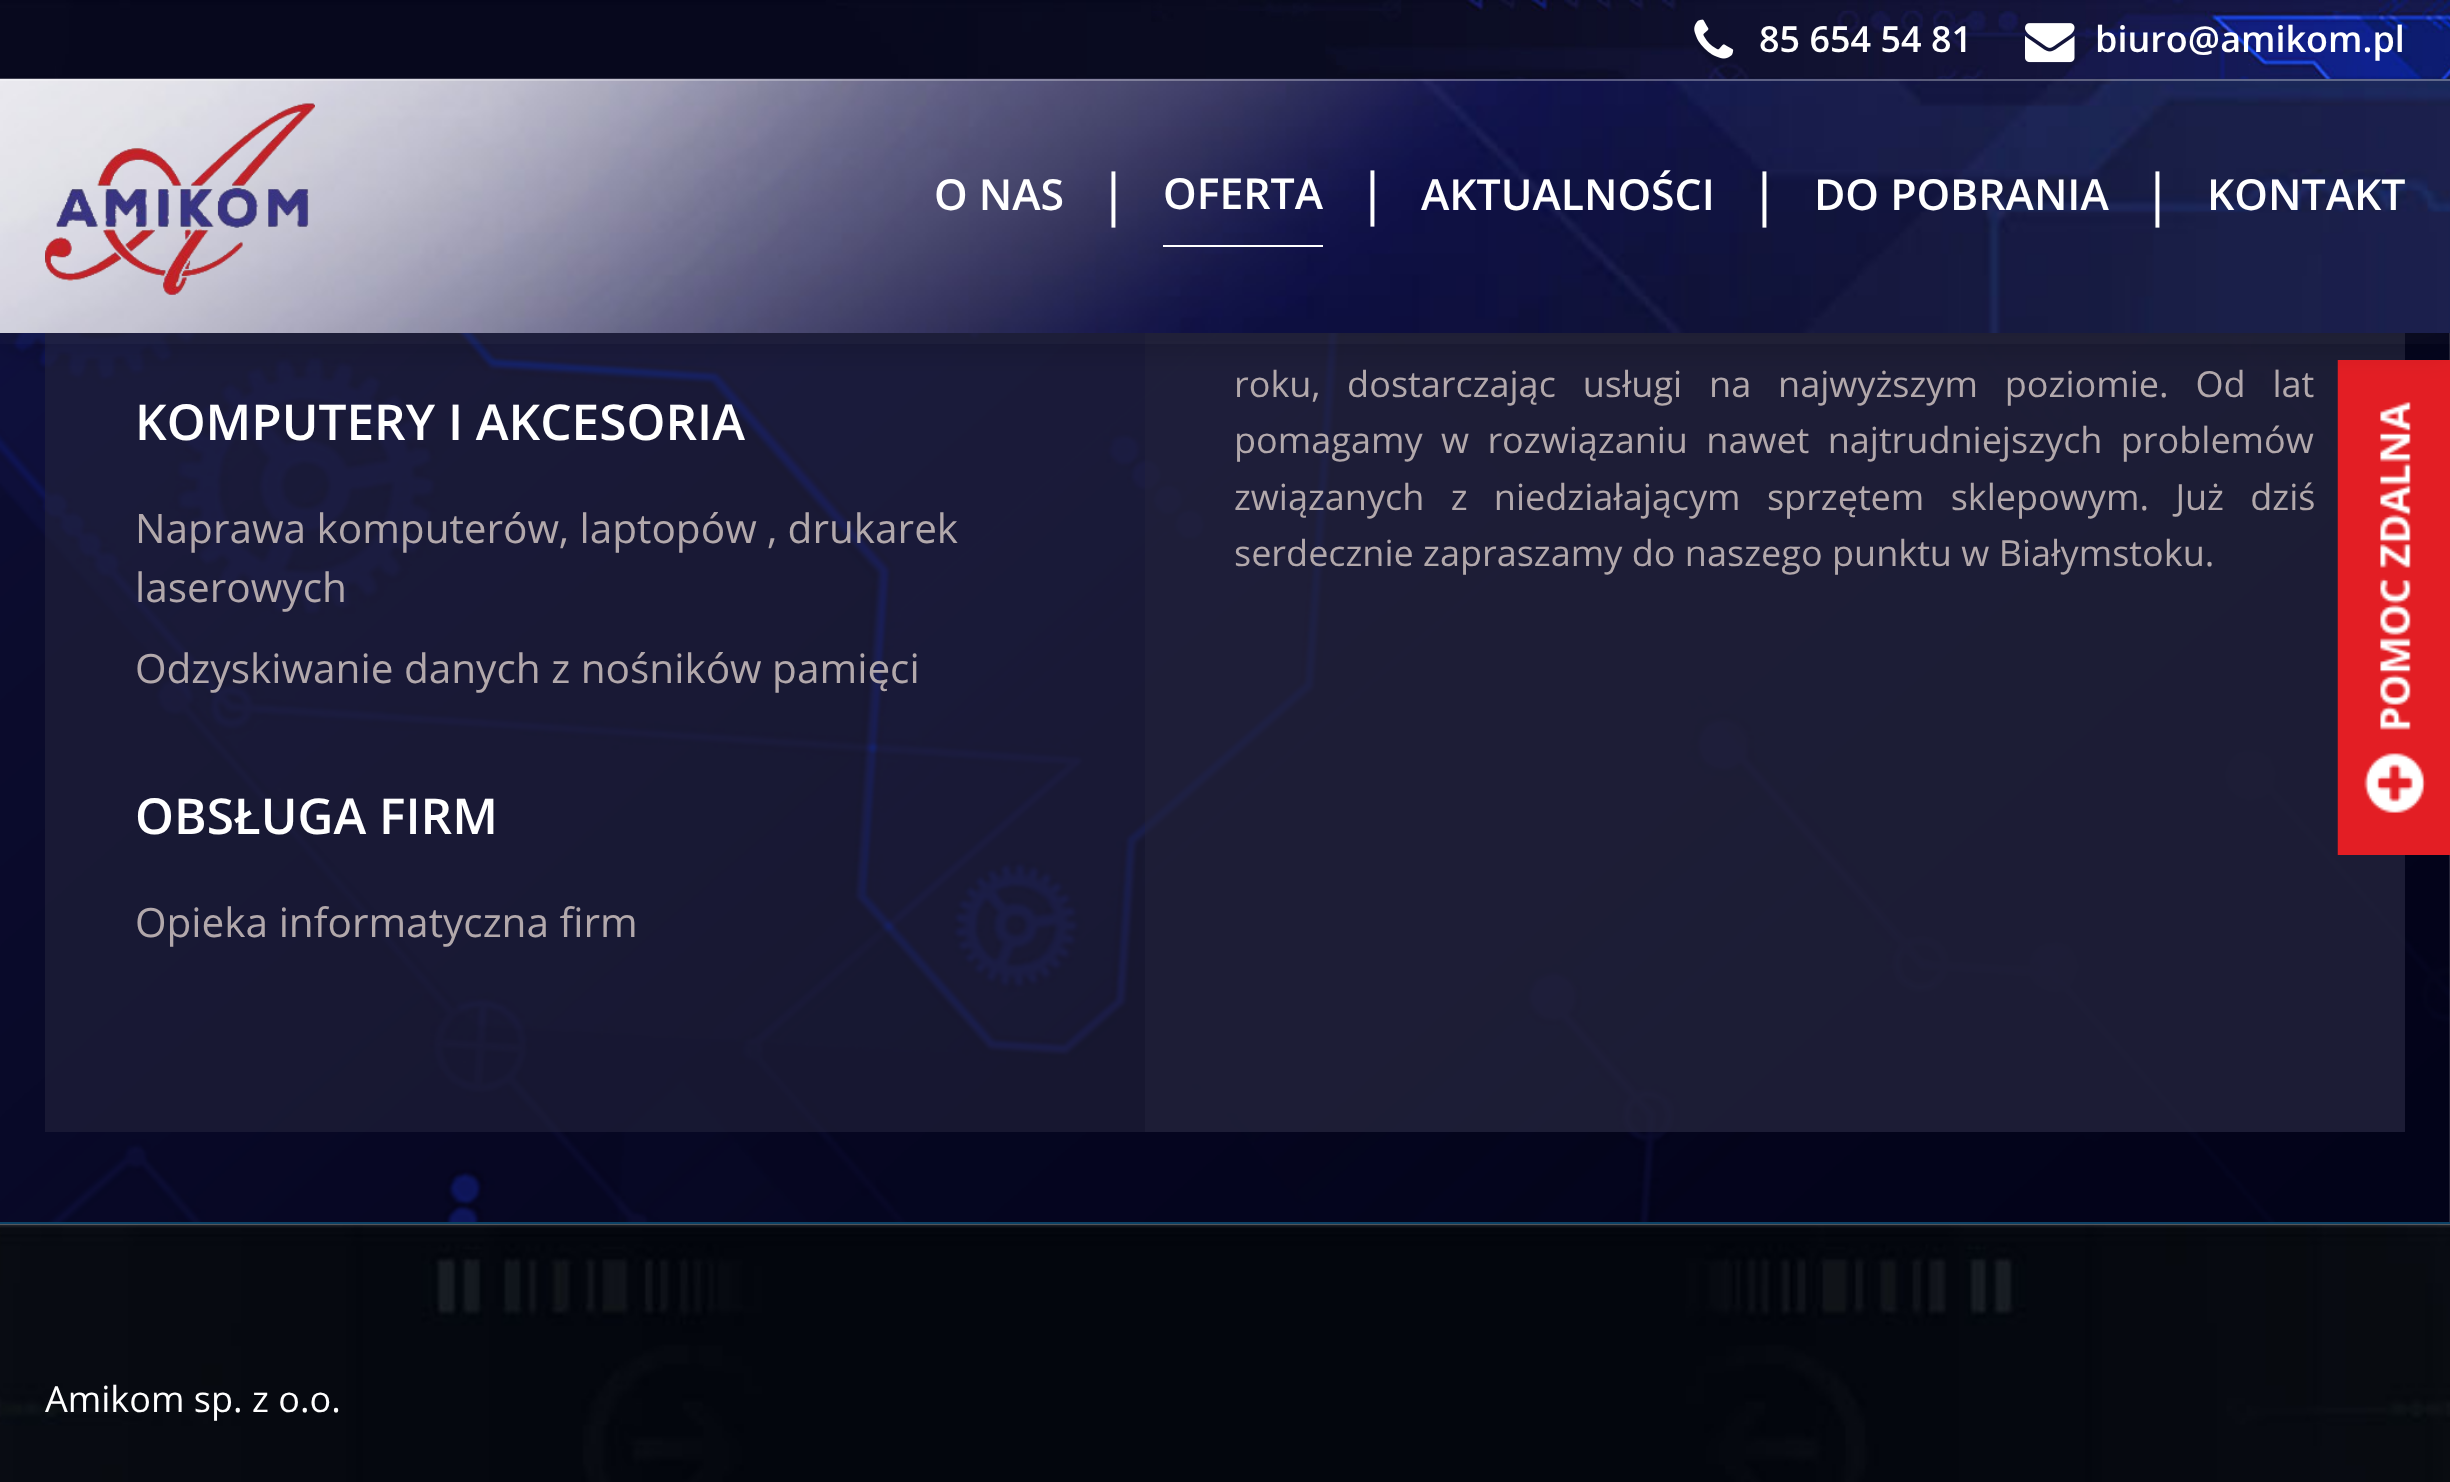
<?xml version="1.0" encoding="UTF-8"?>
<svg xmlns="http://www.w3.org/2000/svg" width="2450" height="1482">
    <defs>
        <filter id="blur1" x="-50%" y="-200%" width="200%" height="500%"><feGaussianBlur stdDeviation="17"/></filter>
    </defs>
    <rect width="100%" height="100%" fill="#FFFFFF"/>
    <image x="0" y="333" width="2450" height="889" href="img_06.png"/>
    <rect x="45" y="333" width="1100" height="799" fill="#23233C" fill-opacity="0.6"/>
    <rect x="1145" y="333" width="1260" height="799" fill="#23233C" fill-opacity="0.8"/>
    <image x="2337" y="360" width="113" height="495" href="img_07.png"/>
    <rect x="0" y="11" width="2450" height="333" fill="#231F20" fill-opacity="0.2" filter="url(#blur1)"/>
    <image x="0" y="78" width="2450" height="255" href="img_01.png"/>
    <image x="0" y="0" width="2450" height="79" href="img_02.png"/>
    <rect x="0" y="79" width="2450" height="2" fill="#FFFFFF" fill-opacity="0.3"/>
    <image x="1694" y="19" width="40" height="40" href="img_03.png"/>
    <text x="1759" y="52" font-family="Open Sans" font-size="36" font-weight="600" fill="#FFFFFF">85 654 54 81</text>
    <image x="2025" y="23" width="50" height="40" href="img_04.png"/>
    <text x="2095" y="52" font-family="Open Sans" font-size="36" font-weight="600" fill="#FFFFFF">biuro@amikom.pl</text>
    <image x="45" y="103" width="270" height="192" href="img_05.png"/>
    <text x="934" y="210" font-family="Open Sans" font-size="42.75" font-weight="600" fill="#FFFFFF">O NAS</text>
    <text x="1098" y="214" font-family="Open Sans" font-size="56" fill="#FFFFFF">|</text>
    <rect x="1163" y="245" width="160" height="2" fill="#FFFFFF"/>
    <text x="1163" y="209" font-family="Open Sans" font-size="42.75" font-weight="600" fill="#FFFFFF">OFERTA</text>
    <text x="1357" y="213" font-family="Open Sans" font-size="56" fill="#FFFFFF">|</text>
    <text x="1421" y="210" font-family="Open Sans" font-size="42.75" font-weight="600" fill="#FFFFFF">AKTUALNOŚCI</text>
    <text x="1749" y="214" font-family="Open Sans" font-size="56" fill="#FFFFFF">|</text>
    <text x="1814" y="210" font-family="Open Sans" font-size="42.75" font-weight="600" fill="#FFFFFF">DO POBRANIA</text>
    <text x="2142" y="214" font-family="Open Sans" font-size="56" fill="#FFFFFF">|</text>
    <text x="2207" y="210" font-family="Open Sans" font-size="42.75" font-weight="600" fill="#FFFFFF">KONTAKT</text>
    <text x="135" y="440" font-family="Open Sans" font-size="49.5" font-weight="600" fill="#FFFFFF">KOMPUTERY I AKCESORIA</text>
    <text font-family="Open Sans" font-size="40.5" fill="#B2A8AB">
        <tspan x="135" y="543">Naprawa komputerów, laptopów , drukarek</tspan>
        <tspan x="135" y="602">laserowych</tspan>
    </text>
    <text x="135" y="683" font-family="Open Sans" font-size="40.5" fill="#B2A8AB">Odzyskiwanie danych z nośników pamięci</text>
    <text x="135" y="834" font-family="Open Sans" font-size="49.5" font-weight="600" fill="#FFFFFF">OBSŁUGA FIRM</text>
    <text x="135" y="937" font-family="Open Sans" font-size="40.5" fill="#B2A8AB">Opieka informatyczna firm</text>
    <text font-family="Open Sans" font-size="36" fill="#B2A8AB">
        <tspan x="1234" y="397" word-spacing="17.5">roku, dostarczając usługi na najwyższym poziomie. Od lat</tspan>
        <tspan x="1234" y="453" word-spacing="9">pomagamy w rozwiązaniu nawet najtrudniejszych problemów</tspan>
        <tspan x="1234" y="510" word-spacing="17">związanych z niedziałającym sprzętem sklepowym. Już dziś</tspan>
        <tspan x="1234" y="566">serdecznie zapraszamy do naszego punktu w Białymstoku.</tspan>
    </text>
    <image x="0" y="1224" width="2450" height="258" href="img_08.png"/>
    <rect x="0" y="1222" width="2450" height="2" fill="#0D4266"/>
    <text x="45" y="1412" font-family="Open Sans" font-size="36" fill="#FFFFFF">Amikom sp. z o.o.</text>
</svg>
